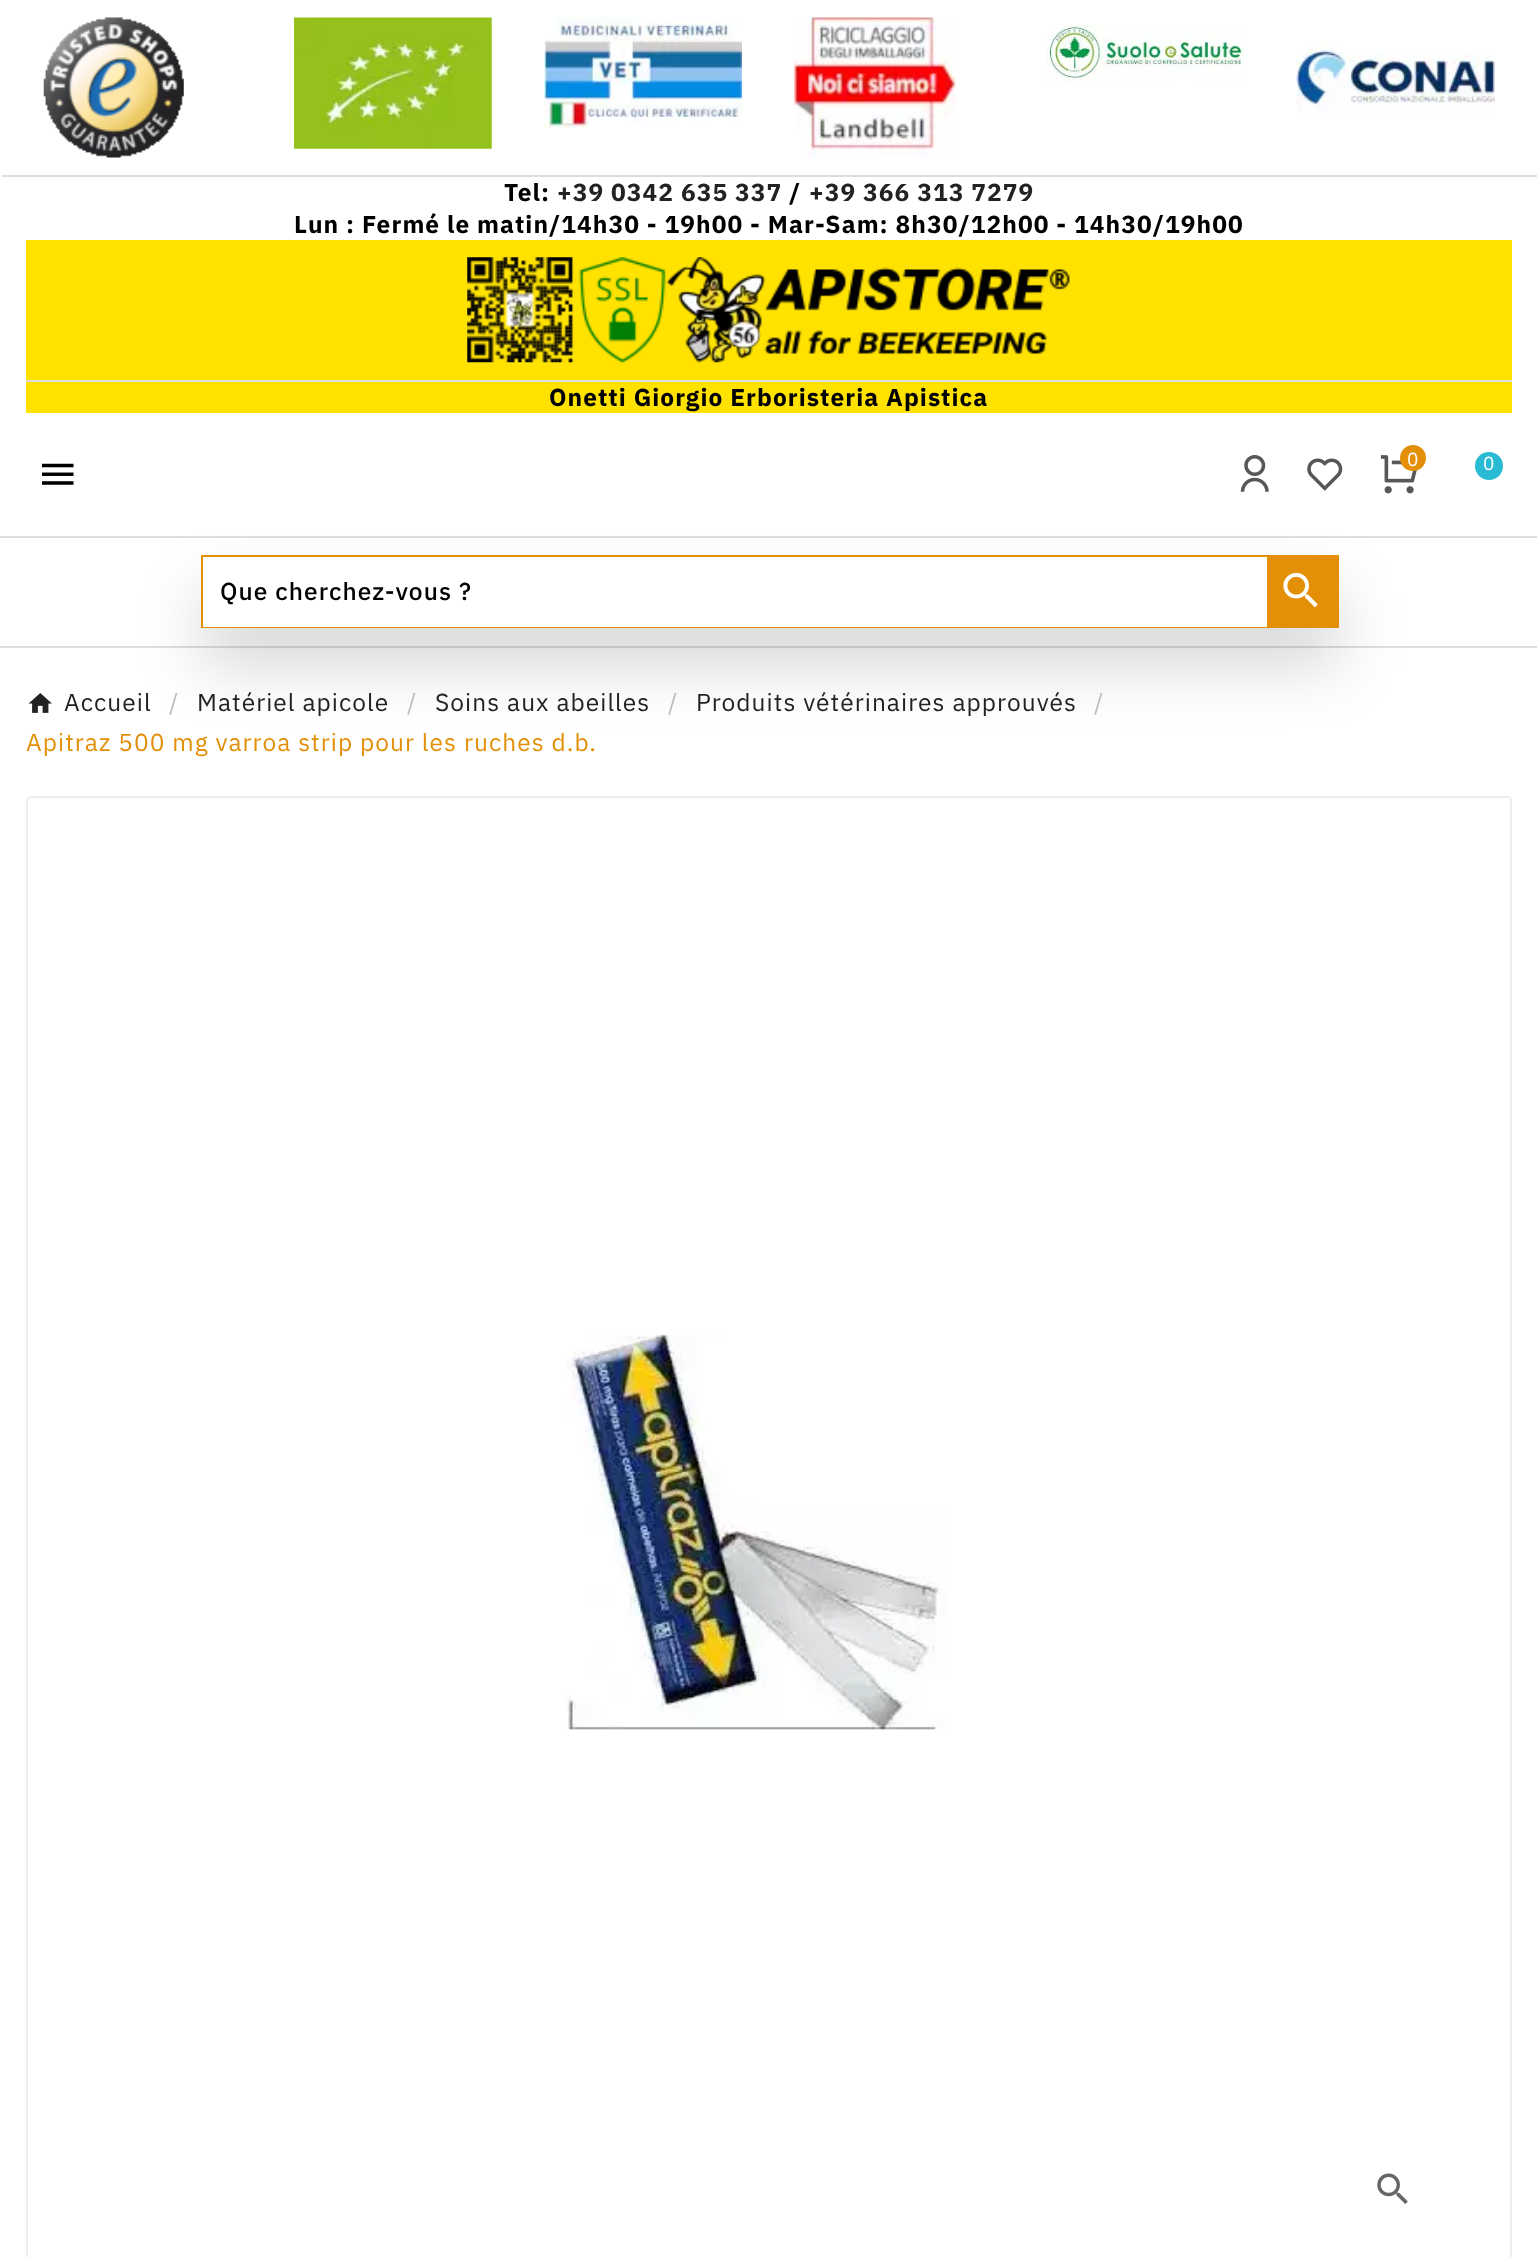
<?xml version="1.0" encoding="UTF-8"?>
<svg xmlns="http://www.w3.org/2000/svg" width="1537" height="2257">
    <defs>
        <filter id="blur1" x="-50%" y="-200%" width="200%" height="500%"><feGaussianBlur stdDeviation="31.5"/></filter>
    </defs>
    <rect width="100%" height="100%" fill="#FFFFFF"/>
    <rect x="2" y="175" width="1535" height="2" fill="#DDDDDD"/>
    <image x="43" y="17" width="141" height="141" href="img_01.png"/>
    <image x="294" y="17" width="198" height="132" href="img_02.png"/>
    <image x="544" y="17" width="198" height="111" href="img_03.png"/>
    <image x="794" y="17" width="162" height="141" href="img_04.png"/>
    <image x="1046" y="24" width="198" height="58" href="img_05.png"/>
    <image x="1296" y="41" width="199" height="72" href="img_06.png"/>
    <rect x="0" y="536" width="1537" height="2" fill="#DDDDDD"/>
    <text x="504" y="201" font-family="IBM Plex Sans" font-size="24.5" font-weight="700" letter-spacing="1.05" fill="#000000">Tel:</text>
    <text x="557" y="201" font-family="IBM Plex Sans" font-size="24.5" font-weight="700" letter-spacing="1.05" fill="#222222">+39 0342 635 337</text>
    <text x="789" y="201" font-family="IBM Plex Sans" font-size="24.5" font-weight="700" letter-spacing="1.05" fill="#000000">/</text>
    <text x="809" y="201" font-family="IBM Plex Sans" font-size="24.5" font-weight="700" letter-spacing="1.05" fill="#222222">+39 366 313 7279</text>
    <text x="294" y="233" font-family="IBM Plex Sans" font-size="24.5" font-weight="700" letter-spacing="1.05" fill="#000000">Lun : Fermé le matin/14h30 - 19h00 - Mar-Sam: 8h30/12h00 - 14h30/19h00</text>
    <rect x="26" y="240" width="1486" height="173" fill="#FFE200"/>
    <rect x="26" y="380" width="1486" height="2" fill="#DDDDDD"/>
    <image x="467" y="257" width="603" height="106" href="img_07.png"/>
    <text x="549" y="406" font-family="IBM Plex Sans" font-size="24.5" font-weight="700" letter-spacing="1.05" fill="#000000">Onetti Giorgio Erboristeria Apistica</text>
    <image x="42" y="463" width="32" height="22" href="img_08.png"/>
    <image x="1240" y="455" width="29" height="37" href="img_09.png"/>
    <image x="1307" y="458" width="36" height="33" href="img_10.png"/>
    <image x="1380" y="455" width="37" height="39" href="img_11.png"/>
    <circle cx="1413" cy="458" r="13" fill="#E38F08"/>
    <text x="1407" y="466" font-family="IBM Plex Sans" font-size="19" letter-spacing="1.05" fill="#FFFFFF">0</text>
    <circle cx="1489" cy="466" r="14" fill="#29BBD4"/>
    <text x="1483" y="470" font-family="IBM Plex Sans" font-size="19" letter-spacing="1.05" fill="#FFFFFF">0</text>
    <rect x="0" y="646" width="1537" height="2" fill="#DDDDDD"/>
    <rect x="201" y="592" width="1138" height="73" fill="#000000" fill-opacity="0.16" filter="url(#blur1)"/>
    <rect x="202" y="556" width="1136" height="71" fill="none" stroke="#E38F08" stroke-width="2"/>
    <rect x="203" y="557" width="1064" height="70" fill="#FFFFFF"/>
    <text x="220" y="600" font-family="IBM Plex Sans" font-size="24.5" font-weight="500" letter-spacing="1.05" fill="#000000">Que cherchez-vous ?</text>
    <rect x="1267" y="557" width="70" height="69" fill="#E38F08"/>
    <image x="1283" y="572" width="35" height="36" href="img_12.png"/>
    <image x="28" y="693" width="24" height="20" href="img_13.png"/>
    <text x="64" y="711" font-family="IBM Plex Sans" font-size="24.5" letter-spacing="1.05" fill="#222222">Accueil</text>
    <text x="169" y="711" font-family="IBM Plex Sans" font-size="24.5" letter-spacing="1.05" fill="#BDBDBD">/</text>
    <text x="197" y="711" font-family="IBM Plex Sans" font-size="24.5" letter-spacing="1.05" fill="#222222">Matériel apicole</text>
    <text x="407" y="711" font-family="IBM Plex Sans" font-size="24.5" letter-spacing="1.05" fill="#BDBDBD">/</text>
    <text x="435" y="711" font-family="IBM Plex Sans" font-size="24.5" letter-spacing="1.05" fill="#222222">Soins aux abeilles</text>
    <text x="668" y="711" font-family="IBM Plex Sans" font-size="24.5" letter-spacing="1.05" fill="#BDBDBD">/</text>
    <text x="696" y="711" font-family="IBM Plex Sans" font-size="24.5" letter-spacing="1.05" fill="#222222">Produits vétérinaires approuvés</text>
    <text x="1094" y="711" font-family="IBM Plex Sans" font-size="24.5" letter-spacing="1.05" fill="#BDBDBD">/</text>
    <text x="26" y="751" font-family="IBM Plex Sans" font-size="24.5" letter-spacing="1.05" fill="#E38F08">Apitraz 500 mg varroa strip pour les ruches d.b.</text>
    <rect x="27" y="797" width="1484" height="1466" rx="4" fill="none" stroke="#EDEDED" stroke-width="2"/>
    <image x="565" y="1334" width="383" height="396" href="img_14.png"/>
    <image x="1377" y="2173" width="31" height="31" href="img_15.png"/>
</svg>
